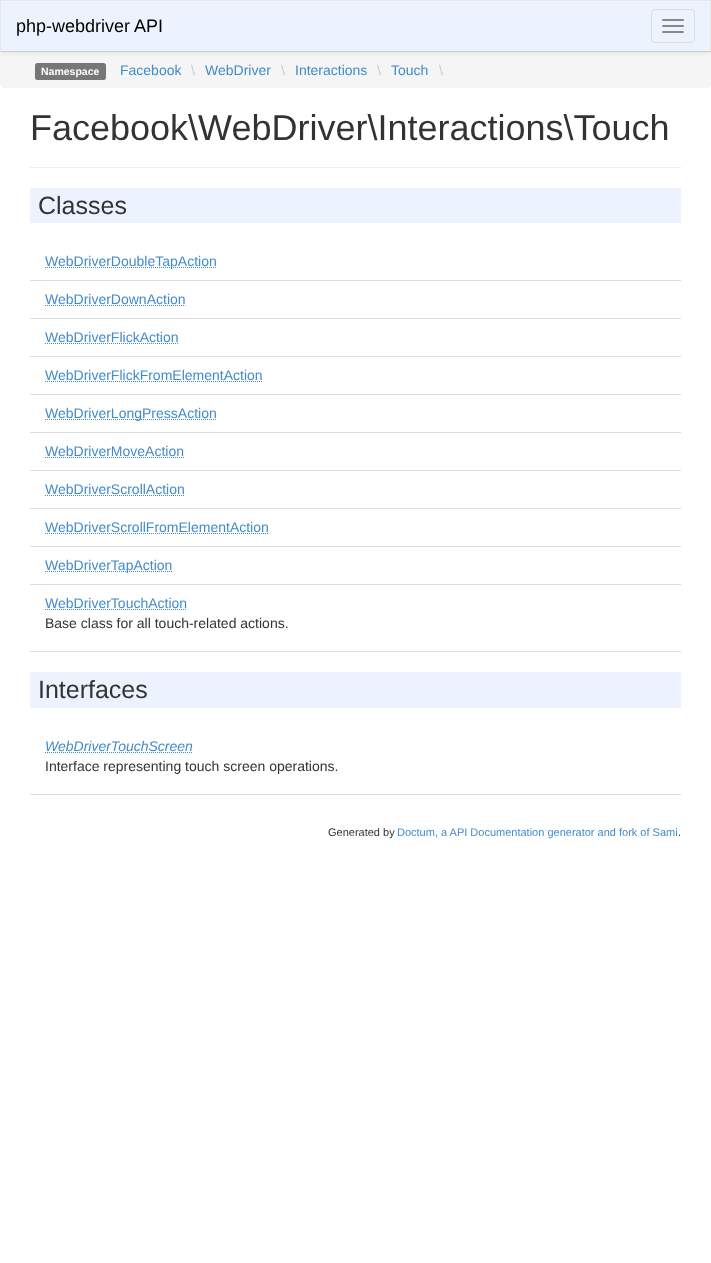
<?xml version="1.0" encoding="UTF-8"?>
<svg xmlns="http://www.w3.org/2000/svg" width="711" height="1263">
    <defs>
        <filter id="blur1" x="-50%" y="-200%" width="200%" height="500%"><feGaussianBlur stdDeviation="2.5"/></filter>
    </defs>
    <rect width="100%" height="100%" fill="#FFFFFF"/>
    <path d="M 0 52 H 711 V 84 C 711 86 709 88 707 88 H 4 C 2 88 0 86 0 84 Z" fill="#F5F5F5"/>
    <rect x="0" y="1" width="711" height="52" fill="#000000" fill-opacity="0.07" filter="url(#blur1)"/>
    <rect x="1" y="2" width="709" height="49" fill="#EDF3FE"/>
    <rect x="1" y="1" width="709" height="1" fill="#F0F5FE"/>
    <rect x="0" y="0" width="711" height="1" fill="#E7E7E7"/>
    <rect x="710" y="0" width="1" height="52" fill="#E7E7E7"/>
    <rect x="0" y="51" width="711" height="1" fill="#CCCCCC"/>
    <rect x="0" y="0" width="1" height="52" fill="#E7E7E7"/>
    <text x="16" y="32" font-family="Liberation Sans" font-size="18" fill="#000000">php-webdriver API</text>
    <rect x="651.5" y="9.5" width="43" height="33" rx="3.5" fill="none" stroke="#DDDDDD"/>
    <rect x="662" y="19" width="22" height="2" rx="1" fill="#888888"/>
    <rect x="662" y="25" width="22" height="2" rx="1" fill="#888888"/>
    <rect x="662" y="31" width="22" height="2" rx="1" fill="#888888"/>
    <rect x="35" y="63" width="71" height="17" rx="2.5" fill="#777777"/>
    <text x="41" y="75" font-family="Liberation Sans" font-size="10.5" font-weight="700" fill="#FFFFFF">Namespace</text>
    <text x="120" y="75" font-family="Liberation Sans" font-size="14" fill="#428BCA">Facebook</text>
    <text x="191" y="75" font-family="Liberation Sans" font-size="14" fill="#CCCCCC">\</text>
    <text x="205" y="75" font-family="Liberation Sans" font-size="14" fill="#428BCA">WebDriver</text>
    <text x="281" y="75" font-family="Liberation Sans" font-size="14" fill="#CCCCCC">\</text>
    <text x="295" y="75" font-family="Liberation Sans" font-size="14" fill="#428BCA">Interactions</text>
    <text x="377" y="75" font-family="Liberation Sans" font-size="14" fill="#CCCCCC">\</text>
    <text x="391" y="75" font-family="Liberation Sans" font-size="14" fill="#428BCA">Touch</text>
    <text x="439" y="75" font-family="Liberation Sans" font-size="14" fill="#CCCCCC">\</text>
    <rect x="30" y="167" width="651" height="1" fill="#EEEEEE"/>
    <text x="30" y="140" font-family="Liberation Sans" font-size="36" fill="#333333">Facebook\WebDriver\Interactions\Touch</text>
    <rect x="30" y="188" width="651" height="35" fill="#EDF3FE"/>
    <text x="38" y="214" font-family="Liberation Sans" font-size="25" fill="#333333">Classes</text>
    <rect x="30" y="280" width="651" height="1" fill="#DDDDDD"/>
    <path d="M 45 267.5 H 216.5" fill="none" stroke="#428BCA" stroke-dasharray="1 1"/>
    <text x="45" y="266" font-family="Liberation Sans" font-size="14" fill="#428BCA">WebDriverDoubleTapAction</text>
    <rect x="30" y="318" width="651" height="1" fill="#DDDDDD"/>
    <text x="45" y="304" font-family="Liberation Sans" font-size="14" fill="#428BCA">WebDriverDownAction</text>
    <path d="M 45 305.5 H 185.5" fill="none" stroke="#428BCA" stroke-dasharray="1 1"/>
    <rect x="30" y="356" width="651" height="1" fill="#DDDDDD"/>
    <text x="45" y="342" font-family="Liberation Sans" font-size="14" fill="#428BCA">WebDriverFlickAction</text>
    <path d="M 45 343.5 H 178.5" fill="none" stroke="#428BCA" stroke-dasharray="1 1"/>
    <rect x="30" y="394" width="651" height="1" fill="#DDDDDD"/>
    <text x="45" y="380" font-family="Liberation Sans" font-size="14" fill="#428BCA">WebDriverFlickFromElementAction</text>
    <path d="M 45 381.5 H 262.5" fill="none" stroke="#428BCA" stroke-dasharray="1 1"/>
    <rect x="30" y="432" width="651" height="1" fill="#DDDDDD"/>
    <path d="M 45 419.5 H 216.5" fill="none" stroke="#428BCA" stroke-dasharray="1 1"/>
    <text x="45" y="418" font-family="Liberation Sans" font-size="14" fill="#428BCA">WebDriverLongPressAction</text>
    <rect x="30" y="470" width="651" height="1" fill="#DDDDDD"/>
    <text x="45" y="456" font-family="Liberation Sans" font-size="14" fill="#428BCA">WebDriverMoveAction</text>
    <path d="M 45 457.5 H 184" fill="none" stroke="#428BCA" stroke-dasharray="1 1"/>
    <rect x="30" y="508" width="651" height="1" fill="#DDDDDD"/>
    <text x="45" y="494" font-family="Liberation Sans" font-size="14" fill="#428BCA">WebDriverScrollAction</text>
    <path d="M 45 495.5 H 185" fill="none" stroke="#428BCA" stroke-dasharray="1 1"/>
    <rect x="30" y="546" width="651" height="1" fill="#DDDDDD"/>
    <text x="45" y="532" font-family="Liberation Sans" font-size="14" fill="#428BCA">WebDriverScrollFromElementAction</text>
    <path d="M 45 533.5 H 269" fill="none" stroke="#428BCA" stroke-dasharray="1 1"/>
    <rect x="30" y="584" width="651" height="1" fill="#DDDDDD"/>
    <path d="M 45 571.5 H 172.5" fill="none" stroke="#428BCA" stroke-dasharray="1 1"/>
    <text x="45" y="570" font-family="Liberation Sans" font-size="14" fill="#428BCA">WebDriverTapAction</text>
    <rect x="30" y="651" width="651" height="1" fill="#DDDDDD"/>
    <text x="45" y="608" font-family="Liberation Sans" font-size="14" fill="#428BCA">WebDriverTouchAction</text>
    <path d="M 45 609.5 H 187" fill="none" stroke="#428BCA" stroke-dasharray="1 1"/>
    <text x="45" y="628" font-family="Liberation Sans" font-size="14" fill="#333333">Base class for all touch-related actions.</text>
    <rect x="30" y="672" width="651" height="36" fill="#EDF3FE"/>
    <text x="38" y="698" font-family="Liberation Sans" font-size="25" fill="#333333">Interfaces</text>
    <rect x="30" y="794" width="651" height="1" fill="#DDDDDD"/>
    <text x="45" y="751" font-family="Liberation Sans" font-size="14" font-style="italic" fill="#428BCA">WebDriverTouchScreen</text>
    <path d="M 45 752.5 H 193" fill="none" stroke="#428BCA" stroke-dasharray="1 1"/>
    <text x="45" y="771" font-family="Liberation Sans" font-size="14" fill="#333333">Interface representing touch screen operations.</text>
    <text x="328" y="836" font-family="Liberation Sans" font-size="11" fill="#333333">Generated by</text>
    <text x="397" y="836" font-family="Liberation Sans" font-size="11" fill="#428BCA">Doctum, a API Documentation generator and fork of Sami</text>
    <text x="678" y="836" font-family="Liberation Sans" font-size="11" fill="#333333">.</text>
</svg>
